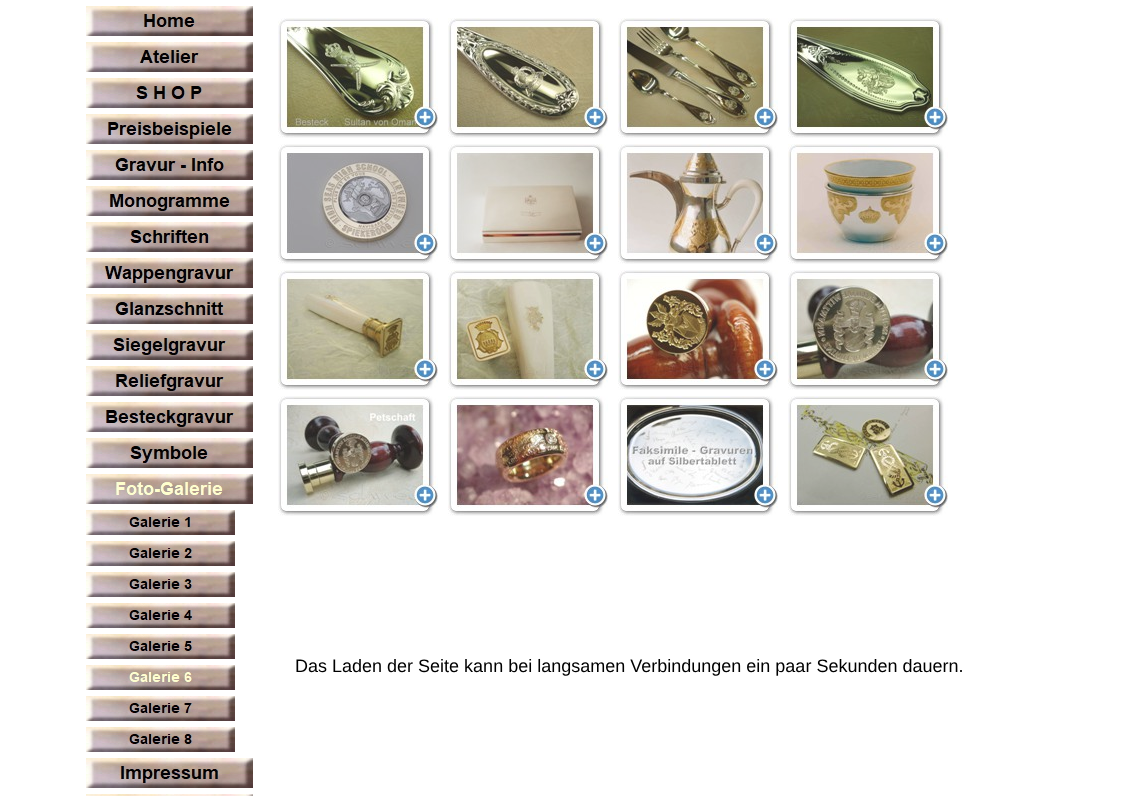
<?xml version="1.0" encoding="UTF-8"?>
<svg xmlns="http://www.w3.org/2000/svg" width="1147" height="796">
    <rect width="100%" height="100%" fill="#FFFFFF"/>
    <image x="86" y="6" width="167" height="30" href="img_01.png"/>
    <image x="86" y="42" width="167" height="30" href="img_02.png"/>
    <image x="86" y="78" width="167" height="30" href="img_03.png"/>
    <image x="86" y="114" width="167" height="30" href="img_04.png"/>
    <image x="86" y="150" width="167" height="30" href="img_05.png"/>
    <image x="86" y="186" width="167" height="30" href="img_06.png"/>
    <image x="86" y="222" width="167" height="30" href="img_07.png"/>
    <image x="86" y="258" width="167" height="30" href="img_08.png"/>
    <image x="86" y="294" width="167" height="30" href="img_09.png"/>
    <image x="86" y="330" width="167" height="30" href="img_10.png"/>
    <image x="86" y="366" width="167" height="30" href="img_11.png"/>
    <image x="86" y="402" width="167" height="30" href="img_12.png"/>
    <image x="86" y="438" width="167" height="30" href="img_13.png"/>
    <image x="86" y="474" width="167" height="30" href="img_14.png"/>
    <image x="86" y="510" width="149" height="25" href="img_15.png"/>
    <image x="86" y="541" width="149" height="25" href="img_16.png"/>
    <image x="86" y="572" width="149" height="25" href="img_17.png"/>
    <image x="86" y="603" width="149" height="25" href="img_18.png"/>
    <image x="86" y="634" width="149" height="25" href="img_19.png"/>
    <image x="86" y="665" width="149" height="25" href="img_20.png"/>
    <image x="86" y="696" width="149" height="25" href="img_21.png"/>
    <image x="86" y="727" width="149" height="25" href="img_22.png"/>
    <image x="86" y="758" width="167" height="30" href="img_23.png"/>
    <image x="86" y="794" width="167" height="2" href="img_24.png"/>
    <image x="278" y="18" width="670" height="498" href="img_25.png"/>
    <text x="295" y="672" font-family="Liberation Sans" font-size="18" fill="#000000">Das Laden der Seite kann bei langsamen Verbindungen ein paar Sekunden dauern.</text>
</svg>
